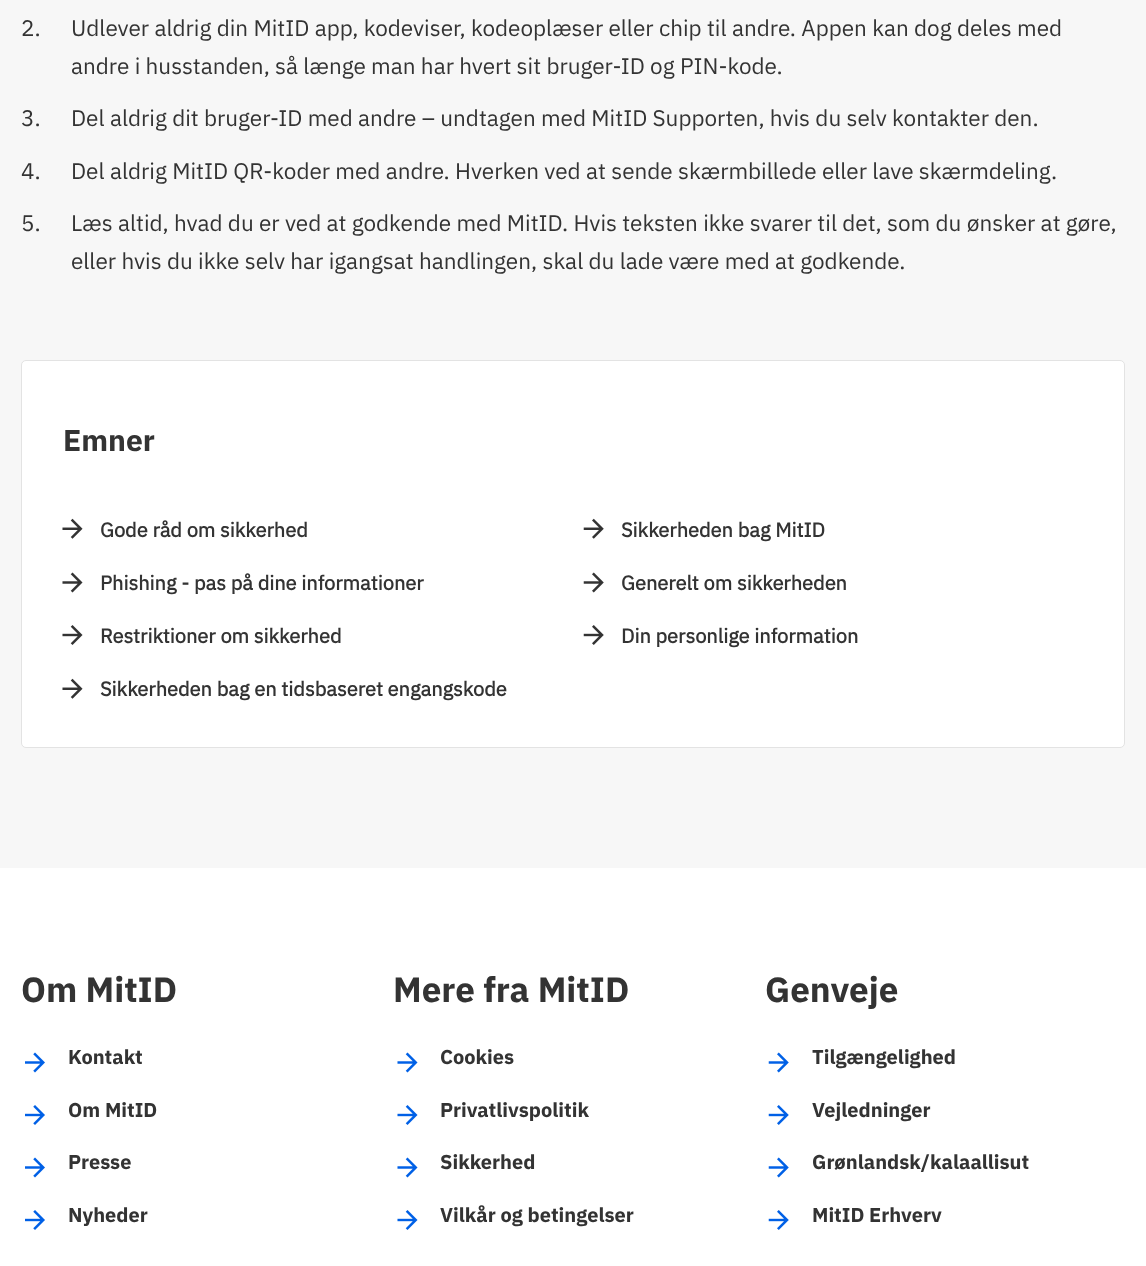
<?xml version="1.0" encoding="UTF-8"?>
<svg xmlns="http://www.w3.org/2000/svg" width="1146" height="1266">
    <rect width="100%" height="100%" fill="#F7F7F7"/>
    <text x="21" y="36" font-family="IBM Plex Sans" font-size="22.5" fill="#333333">2.</text>
    <text font-family="IBM Plex Sans" font-size="22.5" fill="#333333">
        <tspan x="71" y="36">Udlever aldrig din MitID app, kodeviser, kodeoplæser eller chip til andre. Appen kan dog deles med</tspan>
        <tspan x="71" y="74">andre i husstanden, så længe man har hvert sit bruger-ID og PIN-kode.</tspan>
    </text>
    <text x="21" y="126" font-family="IBM Plex Sans" font-size="22.5" fill="#333333">3.</text>
    <text x="71" y="126" font-family="IBM Plex Sans" font-size="22.5" fill="#333333">Del aldrig dit bruger-ID med andre – undtagen med MitID Supporten, hvis du selv kontakter den.</text>
    <text x="21" y="179" font-family="IBM Plex Sans" font-size="22.5" fill="#333333">4.</text>
    <text x="71" y="179" font-family="IBM Plex Sans" font-size="22.5" fill="#333333">Del aldrig MitID QR-koder med andre. Hverken ved at sende skærmbillede eller lave skærmdeling.</text>
    <text x="21" y="231" font-family="IBM Plex Sans" font-size="22.5" fill="#333333">5.</text>
    <text font-family="IBM Plex Sans" font-size="22.5" fill="#333333">
        <tspan x="71" y="231">Læs altid, hvad du er ved at godkende med MitID. Hvis teksten ikke svarer til det, som du ønsker at gøre,</tspan>
        <tspan x="71" y="269">eller hvis du ikke selv har igangsat handlingen, skal du lade være med at godkende.</tspan>
    </text>
    <rect x="21.5" y="360.5" width="1103" height="387" rx="4.5" fill="#FFFFFF" stroke="#E3E3E3"/>
    <text x="63" y="451" font-family="IBM Plex Sans" font-size="30" font-weight="700" fill="#333333">Emner</text>
    <image x="62" y="518" width="21" height="21" href="img_01.png"/>
    <text x="100" y="537" font-family="'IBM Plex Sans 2'" font-size="20" font-weight="700" fill="#333333">Gode råd om sikkerhed</text>
    <image x="583" y="518" width="21" height="21" href="img_02.png"/>
    <text x="621" y="537" font-family="'IBM Plex Sans 2'" font-size="20" font-weight="700" fill="#333333">Sikkerheden bag MitID</text>
    <image x="62" y="572" width="21" height="21" href="img_03.png"/>
    <text x="100" y="590" font-family="'IBM Plex Sans 2'" font-size="20" font-weight="700" fill="#333333">Phishing - pas på dine informationer</text>
    <image x="583" y="572" width="21" height="21" href="img_04.png"/>
    <text x="621" y="590" font-family="'IBM Plex Sans 2'" font-size="20" font-weight="700" fill="#333333">Generelt om sikkerheden</text>
    <image x="62" y="625" width="21" height="20" href="img_05.png"/>
    <text x="100" y="643" font-family="'IBM Plex Sans 2'" font-size="20" font-weight="700" fill="#333333">Restriktioner om sikkerhed</text>
    <image x="583" y="625" width="21" height="20" href="img_06.png"/>
    <text x="621" y="643" font-family="'IBM Plex Sans 2'" font-size="20" font-weight="700" fill="#333333">Din personlige information</text>
    <image x="62" y="678" width="21" height="21" href="img_01.png"/>
    <text x="100" y="696" font-family="'IBM Plex Sans 2'" font-size="20" font-weight="700" fill="#333333">Sikkerheden bag en tidsbaseret engangskode</text>
    <rect x="0" y="868" width="1146" height="398" fill="#FFFFFF"/>
    <text x="21" y="1002" font-family="IBM Plex Sans" font-size="35" font-weight="700" fill="#333333">Om MitID</text>
    <image x="25" y="1052" width="20" height="21" href="img_07.png"/>
    <text x="68" y="1064" font-family="IBM Plex Sans" font-size="20" font-weight="700" fill="#333333">Kontakt</text>
    <image x="25" y="1105" width="20" height="20" href="img_08.png"/>
    <text x="68" y="1117" font-family="IBM Plex Sans" font-size="20" font-weight="700" fill="#333333">Om MitID</text>
    <image x="25" y="1157" width="20" height="21" href="img_07.png"/>
    <text x="68" y="1169" font-family="IBM Plex Sans" font-size="20" font-weight="700" fill="#333333">Presse</text>
    <image x="25" y="1210" width="20" height="20" href="img_08.png"/>
    <text x="68" y="1222" font-family="IBM Plex Sans" font-size="20" font-weight="700" fill="#333333">Nyheder</text>
    <text x="393" y="1002" font-family="IBM Plex Sans" font-size="35" font-weight="700" fill="#333333">Mere fra MitID</text>
    <image x="397" y="1052" width="21" height="21" href="img_09.png"/>
    <text x="440" y="1064" font-family="IBM Plex Sans" font-size="20" font-weight="700" fill="#333333">Cookies</text>
    <image x="397" y="1105" width="21" height="20" href="img_10.png"/>
    <text x="440" y="1117" font-family="IBM Plex Sans" font-size="20" font-weight="700" fill="#333333">Privatlivspolitik</text>
    <image x="397" y="1157" width="21" height="21" href="img_09.png"/>
    <text x="440" y="1169" font-family="IBM Plex Sans" font-size="20" font-weight="700" fill="#333333">Sikkerhed</text>
    <image x="397" y="1210" width="21" height="20" href="img_10.png"/>
    <text x="440" y="1222" font-family="IBM Plex Sans" font-size="20" font-weight="700" fill="#333333">Vilkår og betingelser</text>
    <text x="765" y="1002" font-family="IBM Plex Sans" font-size="35" font-weight="700" fill="#333333">Genveje</text>
    <image x="768" y="1052" width="21" height="21" href="img_11.png"/>
    <text x="812" y="1064" font-family="IBM Plex Sans" font-size="20" font-weight="700" fill="#333333">Tilgængelighed</text>
    <image x="768" y="1105" width="21" height="20" href="img_12.png"/>
    <text x="812" y="1117" font-family="IBM Plex Sans" font-size="20" font-weight="700" fill="#333333">Vejledninger</text>
    <image x="768" y="1157" width="21" height="21" href="img_11.png"/>
    <text x="812" y="1169" font-family="IBM Plex Sans" font-size="20" font-weight="700" fill="#333333">Grønlandsk/kalaallisut</text>
    <image x="768" y="1210" width="21" height="20" href="img_12.png"/>
    <text x="812" y="1222" font-family="IBM Plex Sans" font-size="20" font-weight="700" fill="#333333">MitID Erhverv</text>
</svg>
